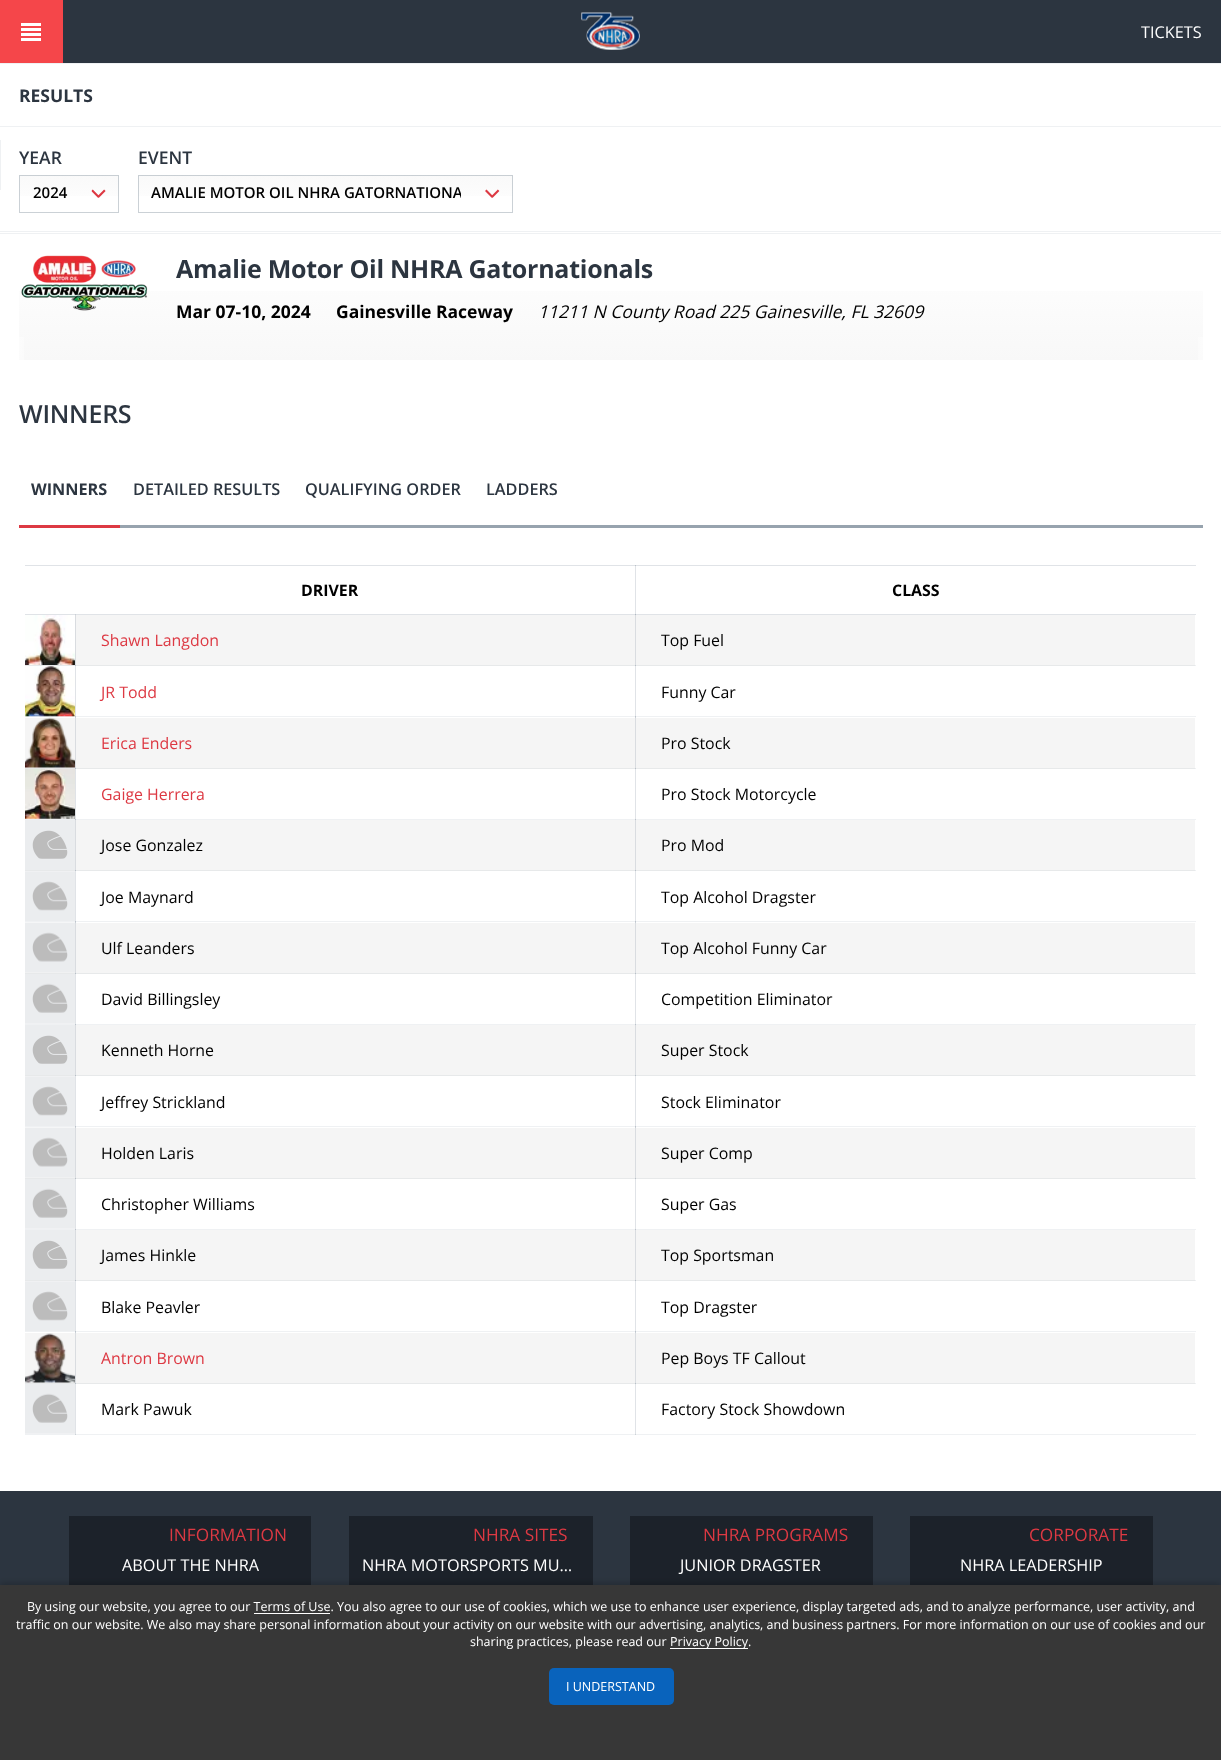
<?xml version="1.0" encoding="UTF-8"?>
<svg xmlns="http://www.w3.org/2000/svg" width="1221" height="1760">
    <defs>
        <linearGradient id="g1" gradientUnits="userSpaceOnUse" x1="69" y1="146" x2="69" y2="213"><stop offset="0" stop-color="#F5F5F5"/><stop offset="1" stop-color="#FFFFFF"/></linearGradient>
        <linearGradient id="g2" gradientUnits="userSpaceOnUse" x1="325" y1="146" x2="325" y2="213"><stop offset="0" stop-color="#F5F5F5"/><stop offset="1" stop-color="#FFFFFF"/></linearGradient>
        <clipPath id="clip1"><rect x="151" y="184" width="310" height="21"/></clipPath>
        <linearGradient id="g3" gradientUnits="userSpaceOnUse" x1="611" y1="252" x2="611" y2="360"><stop offset="0" stop-color="#FFFFFF"/><stop offset="1" stop-color="#F8F8F8"/></linearGradient>
        <linearGradient id="g4" gradientUnits="userSpaceOnUse" x1="1184" y1="306" x2="1203" y2="306"><stop offset="0" stop-color="#FFFFFF" stop-opacity="0"/><stop offset="1" stop-color="#FFFFFF" stop-opacity="0.5"/></linearGradient>
        <linearGradient id="g5" gradientUnits="userSpaceOnUse" x1="19" y1="306" x2="38" y2="306"><stop offset="0" stop-color="#FFFFFF" stop-opacity="0.5"/><stop offset="1" stop-color="#FFFFFF" stop-opacity="0"/></linearGradient>
        <filter id="blur1" x="-50%" y="-200%" width="200%" height="500%"><feGaussianBlur stdDeviation="3"/></filter>
    </defs>
    <rect width="100%" height="100%" fill="#FFFFFF"/>
    <rect x="25" y="614" width="611" height="1" fill="#E0E3E7"/>
    <rect x="635" y="565" width="1" height="50" fill="#E0E3E7"/>
    <rect x="25" y="565" width="1171" height="1" fill="#E0E3E7"/>
    <rect x="635" y="614" width="561" height="1" fill="#E0E3E7"/>
    <rect x="75" y="614" width="1" height="1" fill="#CAD0D6"/>
    <rect x="635" y="614" width="1" height="1" fill="#B0B9C2"/>
    <rect x="1195" y="665" width="1" height="1" fill="#EFF1F3"/>
    <rect x="25" y="716" width="51" height="1" fill="#EFF1F3"/>
    <rect x="75" y="665" width="1" height="53" fill="#E0E3E7"/>
    <rect x="75" y="716" width="561" height="1" fill="#EFF1F3"/>
    <rect x="635" y="665" width="1" height="53" fill="#E0E3E7"/>
    <rect x="635" y="716" width="561" height="1" fill="#EFF1F3"/>
    <rect x="75" y="716" width="1" height="2" fill="#CAD0D6"/>
    <rect x="75" y="716" width="1" height="1" fill="#BCC3CB"/>
    <rect x="635" y="716" width="1" height="2" fill="#CAD0D6"/>
    <rect x="635" y="716" width="1" height="1" fill="#BCC3CB"/>
    <rect x="1195" y="768" width="1" height="1" fill="#EFF1F3"/>
    <rect x="25" y="819" width="51" height="1" fill="#EFF1F3"/>
    <rect x="75" y="768" width="1" height="52" fill="#E0E3E7"/>
    <rect x="75" y="819" width="561" height="1" fill="#EFF1F3"/>
    <rect x="635" y="768" width="1" height="52" fill="#E0E3E7"/>
    <rect x="635" y="819" width="561" height="1" fill="#EFF1F3"/>
    <rect x="75" y="819" width="1" height="1" fill="#BCC3CB"/>
    <rect x="635" y="819" width="1" height="1" fill="#BCC3CB"/>
    <rect x="1195" y="870" width="1" height="1" fill="#EFF1F3"/>
    <rect x="25" y="921" width="51" height="1" fill="#EFF1F3"/>
    <rect x="75" y="870" width="1" height="53" fill="#E0E3E7"/>
    <rect x="75" y="921" width="561" height="1" fill="#EFF1F3"/>
    <rect x="635" y="870" width="1" height="53" fill="#E0E3E7"/>
    <rect x="635" y="921" width="561" height="1" fill="#EFF1F3"/>
    <rect x="75" y="921" width="1" height="2" fill="#CAD0D6"/>
    <rect x="75" y="921" width="1" height="1" fill="#BCC3CB"/>
    <rect x="635" y="921" width="1" height="2" fill="#CAD0D6"/>
    <rect x="635" y="921" width="1" height="1" fill="#BCC3CB"/>
    <rect x="1195" y="973" width="1" height="1" fill="#EFF1F3"/>
    <rect x="25" y="1024" width="51" height="1" fill="#EFF1F3"/>
    <rect x="75" y="973" width="1" height="52" fill="#E0E3E7"/>
    <rect x="75" y="1024" width="561" height="1" fill="#EFF1F3"/>
    <rect x="635" y="973" width="1" height="52" fill="#E0E3E7"/>
    <rect x="635" y="1024" width="561" height="1" fill="#EFF1F3"/>
    <rect x="75" y="1024" width="1" height="1" fill="#BCC3CB"/>
    <rect x="635" y="1024" width="1" height="1" fill="#BCC3CB"/>
    <rect x="1195" y="1075" width="1" height="1" fill="#EFF1F3"/>
    <rect x="25" y="1126" width="51" height="1" fill="#EFF1F3"/>
    <rect x="75" y="1075" width="1" height="53" fill="#E0E3E7"/>
    <rect x="75" y="1126" width="561" height="1" fill="#EFF1F3"/>
    <rect x="635" y="1075" width="1" height="53" fill="#E0E3E7"/>
    <rect x="635" y="1126" width="561" height="1" fill="#EFF1F3"/>
    <rect x="75" y="1126" width="1" height="2" fill="#CAD0D6"/>
    <rect x="75" y="1126" width="1" height="1" fill="#BCC3CB"/>
    <rect x="635" y="1126" width="1" height="2" fill="#CAD0D6"/>
    <rect x="635" y="1126" width="1" height="1" fill="#BCC3CB"/>
    <rect x="1195" y="1178" width="1" height="1" fill="#EFF1F3"/>
    <rect x="25" y="1229" width="51" height="1" fill="#EFF1F3"/>
    <rect x="75" y="1178" width="1" height="52" fill="#E0E3E7"/>
    <rect x="75" y="1229" width="561" height="1" fill="#EFF1F3"/>
    <rect x="635" y="1178" width="1" height="52" fill="#E0E3E7"/>
    <rect x="635" y="1229" width="561" height="1" fill="#EFF1F3"/>
    <rect x="75" y="1229" width="1" height="1" fill="#BCC3CB"/>
    <rect x="635" y="1229" width="1" height="1" fill="#BCC3CB"/>
    <rect x="1195" y="1280" width="1" height="1" fill="#EFF1F3"/>
    <rect x="25" y="1331" width="51" height="1" fill="#EFF1F3"/>
    <rect x="75" y="1280" width="1" height="53" fill="#E0E3E7"/>
    <rect x="75" y="1331" width="561" height="1" fill="#EFF1F3"/>
    <rect x="635" y="1280" width="1" height="53" fill="#E0E3E7"/>
    <rect x="635" y="1331" width="561" height="1" fill="#EFF1F3"/>
    <rect x="75" y="1331" width="1" height="2" fill="#CAD0D6"/>
    <rect x="75" y="1331" width="1" height="1" fill="#BCC3CB"/>
    <rect x="635" y="1331" width="1" height="2" fill="#CAD0D6"/>
    <rect x="635" y="1331" width="1" height="1" fill="#BCC3CB"/>
    <rect x="1195" y="1383" width="1" height="1" fill="#EFF1F3"/>
    <rect x="25" y="1434" width="51" height="1" fill="#EFF1F3"/>
    <rect x="75" y="1383" width="1" height="52" fill="#E0E3E7"/>
    <rect x="75" y="1434" width="561" height="1" fill="#EFF1F3"/>
    <rect x="75" y="1434" width="1" height="1" fill="#CCD2D7"/>
    <rect x="635" y="1383" width="1" height="52" fill="#E0E3E7"/>
    <rect x="63" y="0" width="1158" height="63" fill="#2C3540"/>
    <rect x="0" y="0" width="63" height="63" fill="#F5464A"/>
    <rect x="21" y="23" width="20" height="3" fill="#FFFFFF"/>
    <rect x="21" y="28" width="20" height="3" fill="#FFFFFF"/>
    <rect x="21" y="33" width="20" height="3" fill="#FFFFFF"/>
    <rect x="21" y="38" width="20" height="3" fill="#FFFFFF"/>
    <image x="581" y="12" width="59" height="38" href="img_01.png"/>
    <text x="1141" y="38" font-family="Open Sans" font-size="16.25" fill="#FFFFFF">TICKETS</text>
    <rect x="0" y="63" width="1221" height="1" fill="#EFF1F3"/>
    <rect x="0" y="233" width="1221" height="1" fill="#EFF1F3"/>
    <text x="19" y="102" font-family="Open Sans" font-size="17.5" font-weight="700" fill="#2C3540">RESULTS</text>
    <rect x="0" y="126" width="1221" height="1" fill="#EFF1F3"/>
    <rect x="0" y="231" width="1221" height="1" fill="#EFF1F3"/>
    <rect x="0" y="140" width="1" height="50" fill="#EFF1F3"/>
    <rect x="19" y="175" width="100" height="21" fill="url(#g1)"/>
    <text x="19" y="164" font-family="Open Sans" font-size="17.5" font-weight="600" fill="#2C3540">YEAR</text>
    <image x="91" y="189" width="15" height="9" href="img_02.png"/>
    <rect x="19.5" y="175.5" width="99" height="37" fill="none" stroke="#97A3AE" stroke-opacity="0.5"/>
    <text x="33" y="198" font-family="Open Sans" font-size="15" font-weight="600" fill="#000000">2024</text>
    <rect x="138" y="175" width="375" height="21" fill="url(#g2)"/>
    <text x="138" y="164" font-family="Open Sans" font-size="17.5" font-weight="600" fill="#2C3540">EVENT</text>
    <image x="485" y="189" width="15" height="9" href="img_03.png"/>
    <rect x="138.5" y="175.5" width="374" height="37" fill="none" stroke="#97A3AE" stroke-opacity="0.5"/>
    <g clip-path="url(#clip1)">
        <text x="151" y="198" font-family="Open Sans" font-size="15" font-weight="600" fill="#000000">AMALIE MOTOR OIL NHRA GATORNATIONA</text>
    </g>
    <rect x="19" y="291" width="1184" height="69" fill="url(#g3)"/>
    <image x="21" y="255" width="127" height="56" href="img_04.png"/>
    <text x="176" y="278" font-family="Open Sans" font-size="25" font-weight="700" letter-spacing="-0.25" fill="#2C3540">Amalie Motor Oil NHRA Gatornationals</text>
    <text x="176" y="318" font-family="Open Sans" font-size="17.5" font-weight="700" fill="#000000">Mar 07-10, 2024</text>
    <text x="336" y="318" font-family="Open Sans" font-size="17.5" font-weight="700" fill="#000000">Gainesville Raceway</text>
    <text x="538" y="318" font-family="Open Sans" font-size="17.5" font-style="italic" fill="#000000">11211 N County Road 225 Gainesville, FL 32609</text>
    <rect x="1198" y="337" width="5" height="23" fill="url(#g4)"/>
    <rect x="19" y="337" width="5" height="23" fill="url(#g5)"/>
    <text x="19" y="423" font-family="Open Sans" font-size="25" font-weight="600" letter-spacing="-0.25" fill="#2C3540">WINNERS</text>
    <rect x="19" y="525" width="101" height="3" fill="#DD3943"/>
    <text x="31" y="495" font-family="Open Sans" font-size="16.25" font-weight="700" fill="#2C3540">WINNERS</text>
    <text x="133" y="495" font-family="Open Sans" font-size="16.25" font-weight="600" fill="#2C3540">DETAILED RESULTS</text>
    <text x="305" y="495" font-family="Open Sans" font-size="16.25" font-weight="600" fill="#2C3540">QUALIFYING ORDER</text>
    <text x="486" y="495" font-family="Open Sans" font-size="16.25" font-weight="600" fill="#2C3540">LADDERS</text>
    <rect x="120" y="525" width="1083" height="3" fill="#97A3AE"/>
    <text x="301" y="596" font-family="Open Sans" font-size="15.9" font-weight="700" fill="#000000">DRIVER</text>
    <rect x="635" y="565" width="1" height="1" fill="#BBC3CA"/>
    <text x="892" y="596" font-family="Open Sans" font-size="15.9" font-weight="700" fill="#000000">CLASS</text>
    <rect x="25" y="665" width="610" height="1" fill="#E7E9EA"/>
    <rect x="75" y="615" width="1" height="51" fill="#D9DCE0"/>
    <rect x="75" y="665" width="1" height="1" fill="#B8C0C8"/>
    <image x="25" y="615" width="50" height="50" href="img_05.png"/>
    <rect x="76" y="615" width="559" height="50" fill="#F5F5F5"/>
    <text x="101" y="646" font-family="Open Sans" font-size="15.9" fill="#DD3943">Shawn Langdon</text>
    <rect x="636" y="615" width="559" height="50" fill="#F5F5F5"/>
    <rect x="635" y="615" width="1" height="51" fill="#D9DCE0"/>
    <rect x="635" y="665" width="560" height="1" fill="#E7E9EA"/>
    <rect x="635" y="665" width="1" height="1" fill="#B8C0C8"/>
    <text x="661" y="646" font-family="Open Sans" font-size="15.9" fill="#000000">Top Fuel</text>
    <image x="25" y="666" width="50" height="51" href="img_06.png"/>
    <text x="101" y="698" font-family="Open Sans" font-size="15.9" fill="#DD3943">JR Todd</text>
    <text x="661" y="698" font-family="Open Sans" font-size="15.9" fill="#000000">Funny Car</text>
    <rect x="25" y="718" width="50" height="50" fill="#F5F5F5"/>
    <rect x="25" y="768" width="610" height="1" fill="#E7E9EA"/>
    <rect x="75" y="718" width="1" height="51" fill="#D9DCE0"/>
    <rect x="75" y="768" width="1" height="1" fill="#B8C0C8"/>
    <image x="25" y="717" width="50" height="51" href="img_07.png"/>
    <rect x="76" y="718" width="559" height="50" fill="#F5F5F5"/>
    <text x="101" y="749" font-family="Open Sans" font-size="15.9" fill="#DD3943">Erica Enders</text>
    <rect x="636" y="718" width="559" height="50" fill="#F5F5F5"/>
    <rect x="635" y="718" width="1" height="51" fill="#D9DCE0"/>
    <rect x="635" y="768" width="560" height="1" fill="#E7E9EA"/>
    <rect x="635" y="768" width="1" height="1" fill="#B8C0C8"/>
    <text x="661" y="749" font-family="Open Sans" font-size="15.9" fill="#000000">Pro Stock</text>
    <image x="25" y="768" width="50" height="51" href="img_08.png"/>
    <text x="101" y="800" font-family="Open Sans" font-size="15.9" fill="#DD3943">Gaige Herrera</text>
    <text x="661" y="800" font-family="Open Sans" font-size="15.9" fill="#000000">Pro Stock Motorcycle</text>
    <rect x="25" y="870" width="610" height="1" fill="#E7E9EA"/>
    <rect x="75" y="820" width="1" height="51" fill="#D9DCE0"/>
    <rect x="75" y="870" width="1" height="1" fill="#B8C0C8"/>
    <image x="25" y="820" width="50" height="50" href="img_09.png"/>
    <rect x="76" y="820" width="559" height="50" fill="#F5F5F5"/>
    <text x="101" y="851" font-family="Open Sans" font-size="15.9" fill="#000000">Jose Gonzalez</text>
    <rect x="636" y="820" width="559" height="50" fill="#F5F5F5"/>
    <rect x="635" y="820" width="1" height="51" fill="#D9DCE0"/>
    <rect x="635" y="870" width="560" height="1" fill="#E7E9EA"/>
    <rect x="635" y="870" width="1" height="1" fill="#B8C0C8"/>
    <text x="661" y="851" font-family="Open Sans" font-size="15.9" fill="#000000">Pro Mod</text>
    <image x="25" y="871" width="50" height="50" href="img_10.png"/>
    <text x="101" y="903" font-family="Open Sans" font-size="15.9" fill="#000000">Joe Maynard</text>
    <text x="661" y="903" font-family="Open Sans" font-size="15.9" fill="#000000">Top Alcohol Dragster</text>
    <rect x="25" y="972" width="50" height="1" fill="#F5F5F5"/>
    <rect x="25" y="973" width="610" height="1" fill="#E7E9EA"/>
    <rect x="75" y="923" width="1" height="51" fill="#D9DCE0"/>
    <rect x="75" y="973" width="1" height="1" fill="#B8C0C8"/>
    <image x="25" y="922" width="50" height="51" href="img_11.png"/>
    <rect x="76" y="923" width="559" height="50" fill="#F5F5F5"/>
    <text x="101" y="954" font-family="Open Sans" font-size="15.9" fill="#000000">Ulf Leanders</text>
    <rect x="636" y="923" width="559" height="50" fill="#F5F5F5"/>
    <rect x="635" y="923" width="1" height="51" fill="#D9DCE0"/>
    <rect x="635" y="973" width="560" height="1" fill="#E7E9EA"/>
    <rect x="635" y="973" width="1" height="1" fill="#B8C0C8"/>
    <text x="661" y="954" font-family="Open Sans" font-size="15.9" fill="#000000">Top Alcohol Funny Car</text>
    <image x="25" y="974" width="50" height="50" href="img_12.png"/>
    <text x="101" y="1005" font-family="Open Sans" font-size="15.9" fill="#000000">David Billingsley</text>
    <text x="661" y="1005" font-family="Open Sans" font-size="15.9" fill="#000000">Competition Eliminator</text>
    <rect x="25" y="1075" width="610" height="1" fill="#E7E9EA"/>
    <rect x="75" y="1025" width="1" height="51" fill="#D9DCE0"/>
    <rect x="75" y="1075" width="1" height="1" fill="#B8C0C8"/>
    <image x="25" y="1025" width="50" height="50" href="img_09.png"/>
    <rect x="76" y="1025" width="559" height="50" fill="#F5F5F5"/>
    <text x="101" y="1056" font-family="Open Sans" font-size="15.9" fill="#000000">Kenneth Horne</text>
    <rect x="636" y="1025" width="559" height="50" fill="#F5F5F5"/>
    <rect x="635" y="1025" width="1" height="51" fill="#D9DCE0"/>
    <rect x="635" y="1075" width="560" height="1" fill="#E7E9EA"/>
    <rect x="635" y="1075" width="1" height="1" fill="#B8C0C8"/>
    <text x="661" y="1056" font-family="Open Sans" font-size="15.9" fill="#000000">Super Stock</text>
    <image x="25" y="1076" width="50" height="50" href="img_10.png"/>
    <text x="101" y="1108" font-family="Open Sans" font-size="15.9" fill="#000000">Jeffrey Strickland</text>
    <text x="661" y="1108" font-family="Open Sans" font-size="15.9" fill="#000000">Stock Eliminator</text>
    <rect x="25" y="1177" width="50" height="1" fill="#F5F5F5"/>
    <rect x="25" y="1178" width="610" height="1" fill="#E7E9EA"/>
    <rect x="75" y="1128" width="1" height="51" fill="#D9DCE0"/>
    <rect x="75" y="1178" width="1" height="1" fill="#B8C0C8"/>
    <image x="25" y="1127" width="50" height="51" href="img_11.png"/>
    <rect x="76" y="1128" width="559" height="50" fill="#F5F5F5"/>
    <text x="101" y="1159" font-family="Open Sans" font-size="15.9" fill="#000000">Holden Laris</text>
    <rect x="636" y="1128" width="559" height="50" fill="#F5F5F5"/>
    <rect x="635" y="1128" width="1" height="51" fill="#D9DCE0"/>
    <rect x="635" y="1178" width="560" height="1" fill="#E7E9EA"/>
    <rect x="635" y="1178" width="1" height="1" fill="#B8C0C8"/>
    <text x="661" y="1159" font-family="Open Sans" font-size="15.9" fill="#000000">Super Comp</text>
    <image x="25" y="1179" width="50" height="50" href="img_12.png"/>
    <text x="101" y="1210" font-family="Open Sans" font-size="15.9" fill="#000000">Christopher Williams</text>
    <text x="661" y="1210" font-family="Open Sans" font-size="15.9" fill="#000000">Super Gas</text>
    <rect x="25" y="1280" width="610" height="1" fill="#E7E9EA"/>
    <rect x="75" y="1230" width="1" height="51" fill="#D9DCE0"/>
    <rect x="75" y="1280" width="1" height="1" fill="#B8C0C8"/>
    <image x="25" y="1230" width="50" height="50" href="img_09.png"/>
    <rect x="76" y="1230" width="559" height="50" fill="#F5F5F5"/>
    <text x="101" y="1261" font-family="Open Sans" font-size="15.9" fill="#000000">James Hinkle</text>
    <rect x="636" y="1230" width="559" height="50" fill="#F5F5F5"/>
    <rect x="635" y="1230" width="1" height="51" fill="#D9DCE0"/>
    <rect x="635" y="1280" width="560" height="1" fill="#E7E9EA"/>
    <rect x="635" y="1280" width="1" height="1" fill="#B8C0C8"/>
    <text x="661" y="1261" font-family="Open Sans" font-size="15.9" fill="#000000">Top Sportsman</text>
    <image x="25" y="1281" width="50" height="50" href="img_10.png"/>
    <text x="101" y="1313" font-family="Open Sans" font-size="15.9" fill="#000000">Blake Peavler</text>
    <text x="661" y="1313" font-family="Open Sans" font-size="15.9" fill="#000000">Top Dragster</text>
    <rect x="25" y="1333" width="50" height="50" fill="#F5F5F5"/>
    <rect x="25" y="1383" width="610" height="1" fill="#E7E9EA"/>
    <rect x="75" y="1333" width="1" height="51" fill="#D9DCE0"/>
    <rect x="75" y="1383" width="1" height="1" fill="#B8C0C8"/>
    <image x="25" y="1333" width="50" height="50" href="img_13.png"/>
    <rect x="636" y="1333" width="559" height="50" fill="#F5F5F5"/>
    <rect x="635" y="1333" width="1" height="51" fill="#D9DCE0"/>
    <rect x="635" y="1383" width="560" height="1" fill="#E7E9EA"/>
    <rect x="635" y="1383" width="1" height="1" fill="#B8C0C8"/>
    <text x="661" y="1364" font-family="Open Sans" font-size="15.9" fill="#000000">Pep Boys TF Callout</text>
    <rect x="76" y="1333" width="559" height="50" fill="#F5F5F5"/>
    <text x="101" y="1364" font-family="Open Sans" font-size="15.9" fill="#DD3943">Antron Brown</text>
    <image x="25" y="1384" width="50" height="50" href="img_12.png"/>
    <text x="101" y="1415" font-family="Open Sans" font-size="15.9" fill="#000000">Mark Pawuk</text>
    <rect x="635" y="1434" width="561" height="1" fill="#EFF1F3"/>
    <rect x="635" y="1434" width="1" height="1" fill="#CCD2D7"/>
    <text x="661" y="1415" font-family="Open Sans" font-size="15.9" fill="#000000">Factory Stock Showdown</text>
    <rect x="0" y="1491" width="1221" height="94" fill="#2C3540"/>
    <rect x="69" y="1516" width="242" height="69" fill="#1C222A"/>
    <text x="169" y="1541" font-family="Open Sans" font-size="17.25" fill="#DD3943">INFORMATION</text>
    <text x="122" y="1571" font-family="Open Sans" font-size="16.25" fill="#FFFFFF">ABOUT THE NHRA</text>
    <rect x="349" y="1516" width="244" height="69" fill="#1C222A"/>
    <text x="473" y="1541" font-family="Open Sans" font-size="17.25" fill="#DD3943">NHRA SITES</text>
    <text x="362" y="1571" font-family="Open Sans" font-size="16.25" fill="#FFFFFF">NHRA MOTORSPORTS MU…</text>
    <rect x="630" y="1516" width="243" height="69" fill="#1C222A"/>
    <text x="703" y="1541" font-family="Open Sans" font-size="17.25" fill="#DD3943">NHRA PROGRAMS</text>
    <text x="680" y="1571" font-family="Open Sans" font-size="16.25" fill="#FFFFFF">JUNIOR DRAGSTER</text>
    <rect x="910" y="1516" width="243" height="69" fill="#1C222A"/>
    <text x="1029" y="1541" font-family="Open Sans" font-size="17.25" fill="#DD3943">CORPORATE</text>
    <text x="960" y="1571" font-family="Open Sans" font-size="16.25" fill="#FFFFFF">NHRA LEADERSHIP</text>
    <rect x="0" y="1583" width="1221" height="175" fill="#000000" fill-opacity="0.2" filter="url(#blur1)"/>
    <rect x="0" y="1585" width="1221" height="175" fill="#373737"/>
    <text x="27" y="1611" font-family="Open Sans" font-size="12.5" fill="#FFFFFF">By using our website, you agree to our Terms of Use. You also agree to our use of cookies, which we use to enhance user experience, display targeted ads, and to analyze performance, user activity, and</text>
    <rect x="254" y="1613" width="76" height="1" fill="#FFFFFF"/>
    <text x="16" y="1629" font-family="Open Sans" font-size="12.5" fill="#FFFFFF">traffic on our website. We also may share personal information about your activity on our website with our advertising, analytics, and business partners. For more information on our use of cookies and our</text>
    <text x="470" y="1646" font-family="Open Sans" font-size="12.5" fill="#FFFFFF">sharing practices, please read our</text>
    <rect x="670" y="1648" width="78" height="1" fill="#FFFFFF"/>
    <text x="670" y="1646" font-family="Open Sans" font-size="12.5" fill="#FFFFFF">Privacy Policy.</text>
    <rect x="549" y="1668" width="125" height="37" rx="5" fill="#0963BC"/>
    <text x="566" y="1691" font-family="Open Sans" font-size="12.5" fill="#FFFFFF">I UNDERSTAND</text>
</svg>
